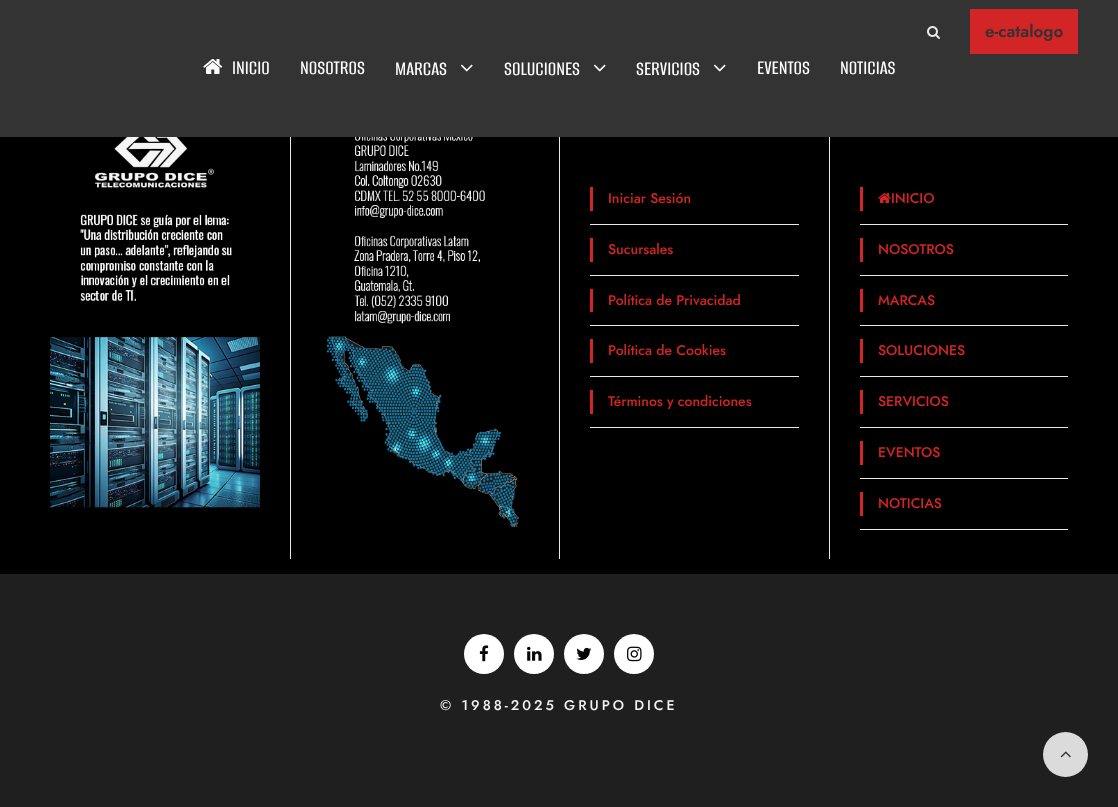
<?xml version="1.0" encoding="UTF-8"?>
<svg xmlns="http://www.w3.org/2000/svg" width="1118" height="807">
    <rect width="100%" height="100%" fill="#000000"/>
    <rect x="0" y="0" width="1118" height="137" fill="#333333"/>
    <image x="927" y="26" width="13" height="13" href="img_01.png"/>
    <rect x="970" y="9" width="108" height="45" fill="#D32525"/>
    <text x="985" y="37" font-family="Jost" font-size="17" font-weight="600" fill="#333333">e-catalogo</text>
    <image x="203" y="59" width="20" height="15" href="img_02.png"/>
    <text x="232" y="74" font-family="Alumni Sans" font-size="21" font-weight="500" fill="#FFFFFF">INICIO</text>
    <text x="300" y="74" font-family="Alumni Sans" font-size="21" font-weight="500" fill="#FFFFFF">NOSOTROS</text>
    <text x="395" y="75" font-family="Alumni Sans" font-size="21" font-weight="500" fill="#FFFFFF">MARCAS</text>
    <image x="460" y="64" width="13" height="8" href="img_03.png"/>
    <text x="504" y="75" font-family="Alumni Sans" font-size="21" font-weight="500" fill="#FFFFFF">SOLUCIONES</text>
    <image x="593" y="64" width="13" height="8" href="img_03.png"/>
    <text x="636" y="75" font-family="Alumni Sans" font-size="21" font-weight="500" fill="#FFFFFF">SERVICIOS</text>
    <image x="713" y="64" width="13" height="8" href="img_03.png"/>
    <text x="757" y="74" font-family="Alumni Sans" font-size="21" font-weight="500" fill="#FFFFFF">EVENTOS</text>
    <text x="840" y="74" font-family="Alumni Sans" font-size="21" font-weight="500" fill="#FFFFFF">NOTICIAS</text>
    <image x="50" y="137" width="210" height="371" href="img_04.png"/>
    <rect x="290" y="137" width="1" height="422" fill="#E9E9E9"/>
    <image x="327" y="137" width="192" height="390" href="img_05.png"/>
    <rect x="559" y="137" width="1" height="422" fill="#E9E9E9"/>
    <rect x="590" y="224" width="209" height="1" fill="#E9E9E9"/>
    <rect x="590" y="187" width="3" height="24" fill="#D32525"/>
    <text x="608" y="203" font-family="Jost" font-size="14" font-weight="500" fill="#D32525">Iniciar Sesión</text>
    <rect x="590" y="275" width="209" height="1" fill="#E9E9E9"/>
    <rect x="590" y="238" width="3" height="24" fill="#D32525"/>
    <text x="608" y="254" font-family="Jost" font-size="14" font-weight="500" fill="#D32525">Sucursales</text>
    <rect x="590" y="325" width="209" height="1" fill="#E9E9E9"/>
    <rect x="590" y="289" width="3" height="23" fill="#D32525"/>
    <text x="608" y="305" font-family="Jost" font-size="14" font-weight="500" fill="#D32525">Política de Privacidad</text>
    <rect x="590" y="376" width="209" height="1" fill="#E9E9E9"/>
    <rect x="590" y="339" width="3" height="24" fill="#D32525"/>
    <text x="608" y="355" font-family="Jost" font-size="14" font-weight="500" fill="#D32525">Política de Cookies</text>
    <rect x="590" y="427" width="209" height="1" fill="#E9E9E9"/>
    <rect x="590" y="390" width="3" height="24" fill="#D32525"/>
    <text x="608" y="406" font-family="Jost" font-size="14" font-weight="500" fill="#D32525">Términos y condiciones</text>
    <rect x="829" y="137" width="1" height="422" fill="#E9E9E9"/>
    <rect x="860" y="224" width="208" height="1" fill="#E9E9E9"/>
    <rect x="860" y="187" width="3" height="24" fill="#D32525"/>
    <image x="878" y="193" width="13" height="10" href="img_06.png"/>
    <text x="891" y="203" font-family="Jost" font-size="14" font-weight="500" fill="#D32525">INICIO</text>
    <rect x="860" y="275" width="208" height="1" fill="#E9E9E9"/>
    <rect x="860" y="238" width="3" height="24" fill="#D32525"/>
    <text x="878" y="254" font-family="Jost" font-size="14" font-weight="500" fill="#D32525">NOSOTROS</text>
    <rect x="860" y="325" width="208" height="1" fill="#E9E9E9"/>
    <rect x="860" y="289" width="3" height="23" fill="#D32525"/>
    <text x="878" y="305" font-family="Jost" font-size="14" font-weight="500" fill="#D32525">MARCAS</text>
    <rect x="860" y="376" width="208" height="1" fill="#E9E9E9"/>
    <rect x="860" y="339" width="3" height="24" fill="#D32525"/>
    <text x="878" y="355" font-family="Jost" font-size="14" font-weight="500" fill="#D32525">SOLUCIONES</text>
    <rect x="860" y="427" width="208" height="1" fill="#E9E9E9"/>
    <rect x="860" y="390" width="3" height="24" fill="#D32525"/>
    <text x="878" y="406" font-family="Jost" font-size="14" font-weight="500" fill="#D32525">SERVICIOS</text>
    <rect x="860" y="478" width="208" height="1" fill="#E9E9E9"/>
    <rect x="860" y="441" width="3" height="24" fill="#D32525"/>
    <text x="878" y="457" font-family="Jost" font-size="14" font-weight="500" fill="#D32525">EVENTOS</text>
    <rect x="860" y="529" width="208" height="1" fill="#E9E9E9"/>
    <rect x="860" y="492" width="3" height="24" fill="#D32525"/>
    <text x="878" y="508" font-family="Jost" font-size="14" font-weight="500" fill="#D32525">NOTICIAS</text>
    <rect x="0" y="574" width="1118" height="233" fill="#1F1F1F"/>
    <circle cx="484" cy="654" r="20" fill="#FFFFFF"/>
    <image x="479" y="645" width="10" height="17" href="img_07.png"/>
    <circle cx="534" cy="654" r="20" fill="#FFFFFF"/>
    <image x="527" y="646" width="15" height="15" href="img_08.png"/>
    <circle cx="584" cy="654" r="20" fill="#FFFFFF"/>
    <image x="576" y="647" width="16" height="13" href="img_09.png"/>
    <circle cx="634" cy="654" r="20" fill="#FFFFFF"/>
    <image x="627" y="646" width="15" height="16" href="img_10.png"/>
    <text x="440" y="710" font-family="Jost" font-size="14" font-weight="500" letter-spacing="3" fill="#F2F2F2">© 1988-2025 GRUPO DICE</text>
    <circle cx="1065.5" cy="754.5" r="22.5" fill="#DBDBDB"/>
    <image x="1060" y="751" width="11" height="7" href="img_11.png"/>
</svg>
